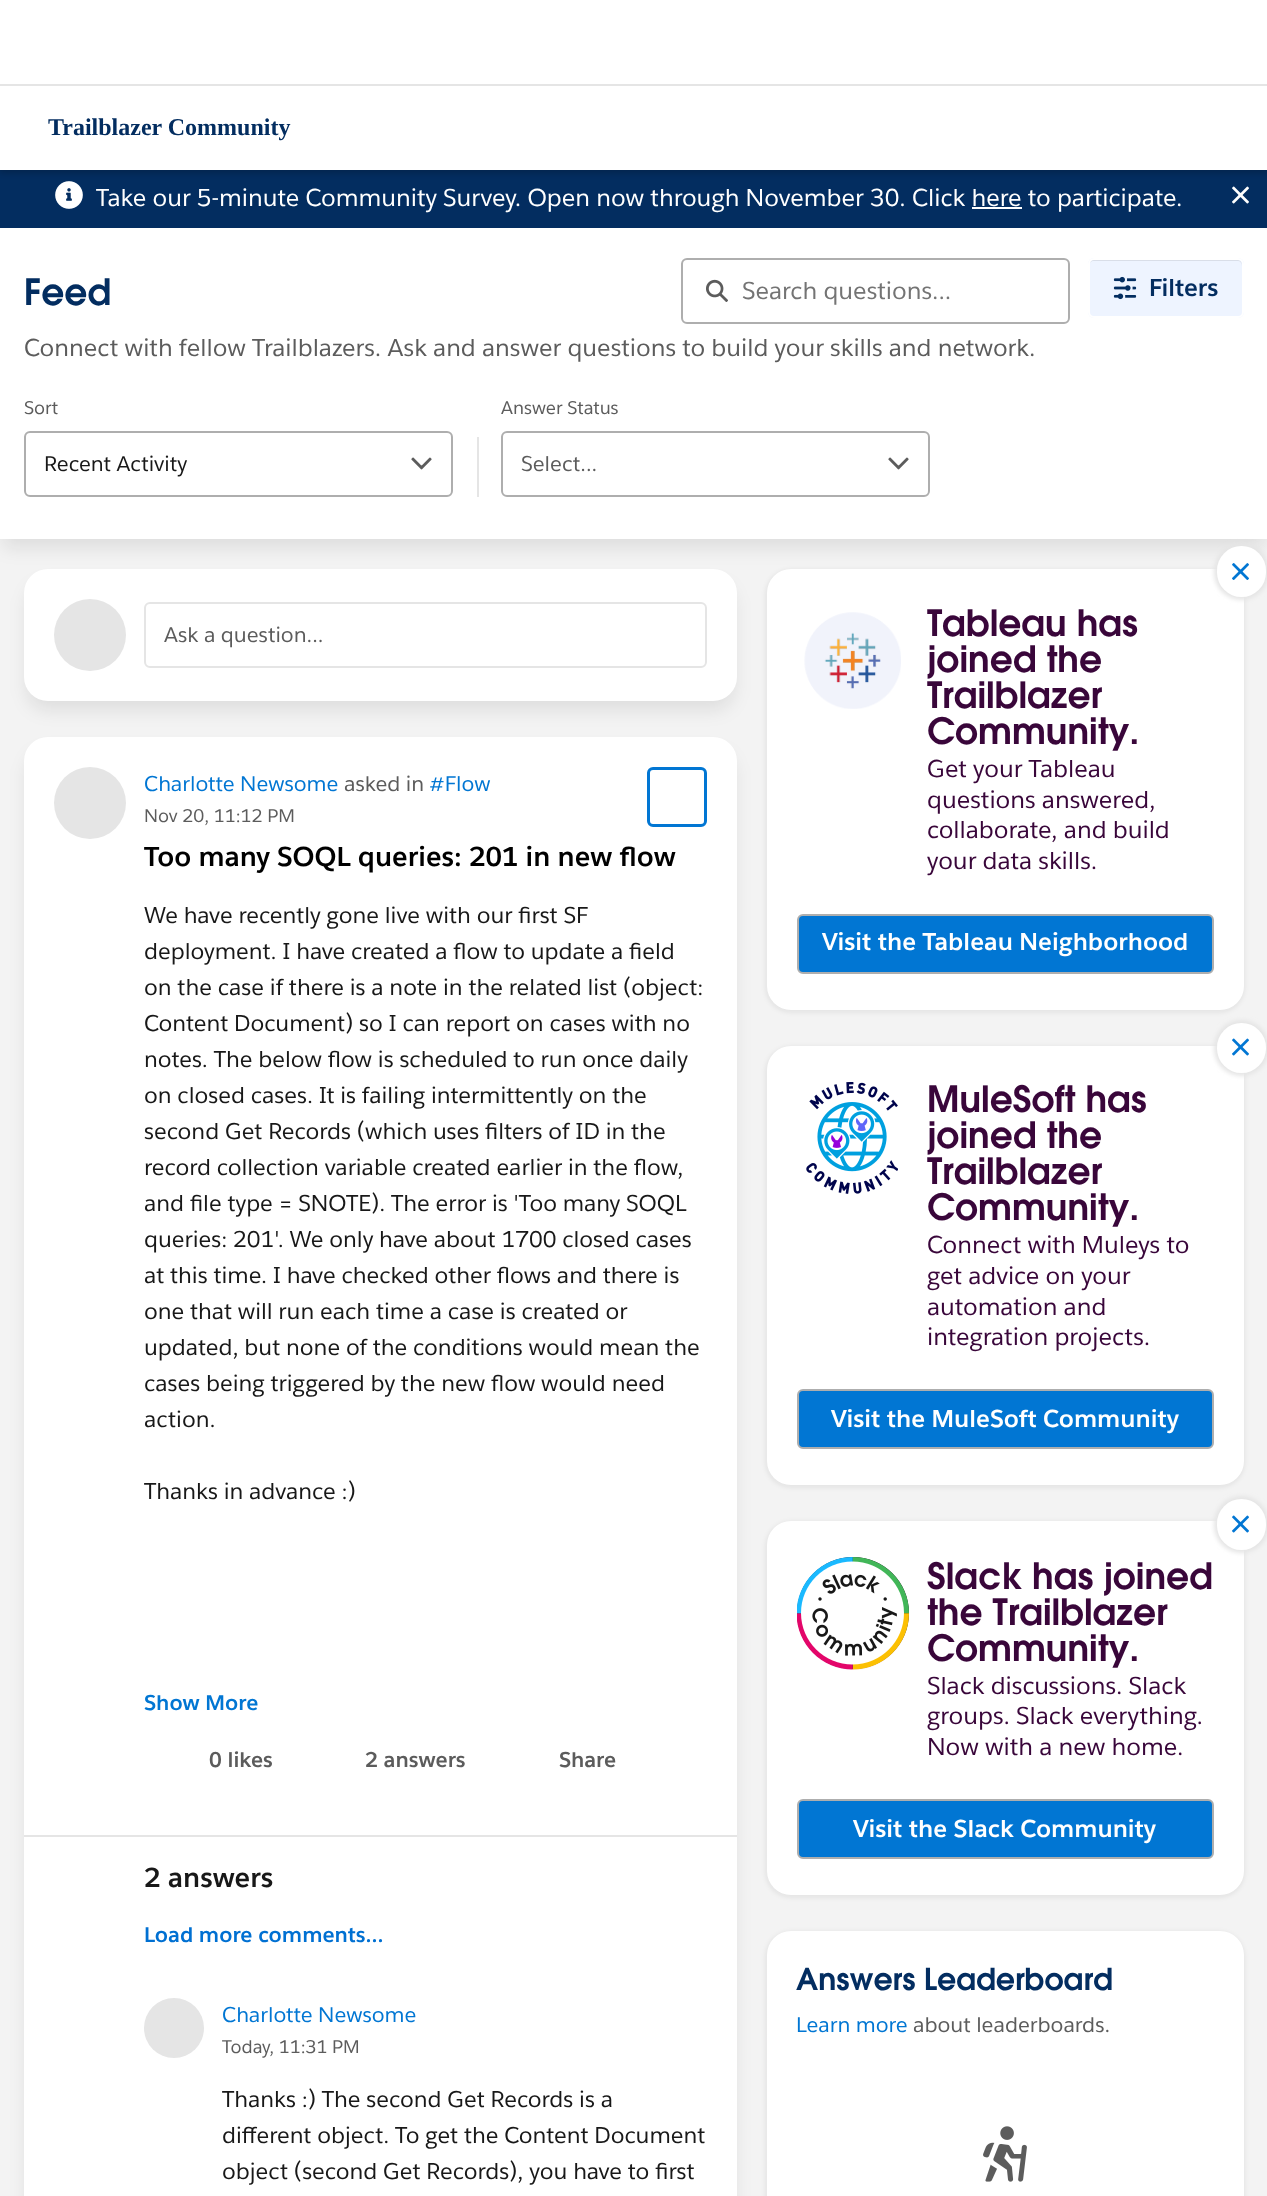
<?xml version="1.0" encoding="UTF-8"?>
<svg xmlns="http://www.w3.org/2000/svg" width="1267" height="2196">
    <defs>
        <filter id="blur1" x="-50%" y="-200%" width="200%" height="500%"><feGaussianBlur stdDeviation="3"/></filter>
        <filter id="blur2" x="-50%" y="-200%" width="200%" height="500%"><feGaussianBlur stdDeviation="1.5"/></filter>
        <filter id="blur3" x="-50%" y="-200%" width="200%" height="500%"><feGaussianBlur stdDeviation="9"/></filter>
        <filter id="blur4" x="-50%" y="-200%" width="200%" height="500%"><feGaussianBlur stdDeviation="2"/></filter>
    </defs>
    <rect width="100%" height="100%" fill="#F3F3F3"/>
    <rect x="0" y="170" width="1267" height="58" fill="#032D60"/>
    <image x="55" y="181" width="28" height="28" href="img_01.png"/>
    <rect x="-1" y="86" width="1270" height="88" fill="#181818" fill-opacity="0.16" filter="url(#blur1)"/>
    <rect x="0" y="84" width="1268" height="86" fill="#181818" fill-opacity="0.08" filter="url(#blur2)"/>
    <rect x="0" y="0" width="1267" height="84" fill="#FFFFFF"/>
    <rect x="0" y="86" width="1267" height="84" fill="#FFFFFF"/>
    <rect x="0" y="84" width="1267" height="2" fill="#E5E5E5"/>
    <text x="48" y="135" font-family="Liberation Serif" font-size="24" font-weight="700" fill="#032D60">Trailblazer Community</text>
    <text x="96" y="206" font-family="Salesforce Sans" font-size="24" fill="#FFFFFF">Take our 5-minute Community Survey. Open now through November 30. Click here to participate.</text>
    <rect x="972" y="207" width="50" height="2" fill="#FFFFFF"/>
    <image x="1232" y="186" width="17" height="18" href="img_02.png"/>
    <rect x="27" y="584" width="707" height="126" rx="21" fill="#181818" fill-opacity="0.09" filter="url(#blur3)"/>
    <rect x="24" y="569" width="713" height="132" rx="24" fill="#FFFFFF"/>
    <rect x="3" y="243" width="1262" height="305" fill="#181818" fill-opacity="0.09" filter="url(#blur3)"/>
    <rect x="0" y="228" width="1267" height="311" fill="#FFFFFF"/>
    <text x="24" y="305" font-family="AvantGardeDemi" font-size="36" font-weight="600" fill="#032D60">Feed</text>
    <rect x="682" y="259" width="387" height="64" rx="5" fill="none" stroke="#AEAEAE" stroke-width="2"/>
    <image x="706" y="279" width="22" height="23" href="img_03.png"/>
    <text x="742" y="299" font-family="Salesforce Sans" font-size="24" fill="#747474">Search questions...</text>
    <rect x="1088" y="258" width="156" height="60" rx="6" fill="#EEF4FF"/>
    <path d="M 1094 261 H 1238 C 1240 261 1242 263 1242 266 V 265 C 1242 262 1240 260 1237 260 H 1094 C 1091 260 1089 262 1089 265 V 266 C 1089 263 1091 261 1094 261 Z" fill="#D9DEE8"/>
    <rect x="1089" y="259" width="154" height="58" rx="5" fill="none" stroke="#FFFFFF" stroke-width="2"/>
    <image x="1113" y="276" width="24" height="24" href="img_04.png"/>
    <text x="1149" y="296" font-family="Salesforce Sans" font-size="24" font-weight="700" fill="#032D60">Filters</text>
    <text x="24" y="356" font-family="Salesforce Sans" font-size="24" fill="#5C5C5C">Connect with fellow Trailblazers. Ask and answer questions to build your skills and network.</text>
    <text x="24" y="414" font-family="Salesforce Sans" font-size="18" fill="#5C5C5C">Sort</text>
    <rect x="25" y="432" width="427" height="64" rx="5" fill="none" stroke="#AEAEAE" stroke-width="2"/>
    <text x="44" y="471" font-family="Salesforce Sans" font-size="21" fill="#181818">Recent Activity</text>
    <image x="411" y="457" width="21" height="13" href="img_05.png"/>
    <rect x="477" y="437" width="2" height="60" fill="#E5E5E5"/>
    <text x="501" y="414" font-family="Salesforce Sans" font-size="18" fill="#5C5C5C">Answer Status</text>
    <rect x="502" y="432" width="427" height="64" rx="5" fill="none" stroke="#AEAEAE" stroke-width="2"/>
    <text x="521" y="471" font-family="Salesforce Sans" font-size="21" fill="#5C5C5C">Select...</text>
    <image x="888" y="457" width="21" height="13" href="img_05.png"/>
    <circle cx="90" cy="635" r="36" fill="#E5E5E5"/>
    <rect x="145" y="603" width="561" height="64" rx="5" fill="none" stroke="#E5E5E5" stroke-width="2"/>
    <text x="164" y="642" font-family="Salesforce Sans" font-size="21" fill="#5C5C5C">Ask a question...</text>
    <rect x="27" y="752" width="707" height="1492" rx="21" fill="#181818" fill-opacity="0.09" filter="url(#blur3)"/>
    <rect x="24" y="737" width="713" height="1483" rx="24" fill="#FFFFFF"/>
    <circle cx="90" cy="803" r="36" fill="#E5E5E5"/>
    <text x="144" y="791" font-family="Salesforce Sans" font-size="21" fill="#0176D3">Charlotte Newsome</text>
    <text x="344" y="791" font-family="Salesforce Sans" font-size="21" fill="#5C5C5C">asked in</text>
    <text x="429" y="791" font-family="Salesforce Sans" font-size="21" fill="#0176D3">#Flow</text>
    <rect x="648.5" y="768.5" width="57" height="57" rx="4.5" fill="none" stroke="#0176D3" stroke-width="3"/>
    <text x="144" y="822" font-family="Salesforce Sans" font-size="18" fill="#5C5C5C">Nov 20, 11:12 PM</text>
    <text x="144" y="866" font-family="Salesforce Sans" font-size="27" font-weight="700" fill="#000000">Too many SOQL queries: 201 in new flow</text>
    <text font-family="Salesforce Sans" font-size="22.5" fill="#181818">
        <tspan x="144" y="923">We have recently gone live with our first SF</tspan>
        <tspan x="144" y="959">deployment. I have created a flow to update a field</tspan>
        <tspan x="144" y="995">on the case if there is a note in the related list (object:</tspan>
        <tspan x="144" y="1031">Content Document) so I can report on cases with no</tspan>
        <tspan x="144" y="1067">notes. The below flow is scheduled to run once daily</tspan>
        <tspan x="144" y="1103">on closed cases. It is failing intermittently on the</tspan>
        <tspan x="144" y="1139">second Get Records (which uses filters of ID in the</tspan>
        <tspan x="144" y="1175">record collection variable created earlier in the flow,</tspan>
        <tspan x="144" y="1211">and file type = SNOTE). The error is 'Too many SOQL</tspan>
        <tspan x="144" y="1247">queries: 201'. We only have about 1700 closed cases</tspan>
        <tspan x="144" y="1283">at this time. I have checked other flows and there is</tspan>
        <tspan x="144" y="1319">one that will run each time a case is created or</tspan>
        <tspan x="144" y="1355">updated, but none of the conditions would mean the</tspan>
        <tspan x="144" y="1391">cases being triggered by the new flow would need</tspan>
        <tspan x="144" y="1427">action.</tspan>
    </text>
    <text x="144" y="1499" font-family="Salesforce Sans" font-size="22.5" fill="#181818">Thanks in advance :)</text>
    <text x="144" y="1710" font-family="Salesforce Sans" font-size="21" font-weight="700" fill="#0176D3">Show More</text>
    <text x="209" y="1767" font-family="Salesforce Sans" font-size="21" font-weight="700" fill="#5C5C5C">0 likes</text>
    <text x="365" y="1767" font-family="Salesforce Sans" font-size="21" font-weight="700" fill="#5C5C5C">2 answers</text>
    <text x="559" y="1767" font-family="Salesforce Sans" font-size="21" font-weight="700" fill="#5C5C5C">Share</text>
    <rect x="24" y="1835" width="713" height="2" fill="#E5E5E5"/>
    <text x="144" y="1887" font-family="Salesforce Sans" font-size="27" font-weight="700" fill="#181818">2 answers</text>
    <text x="144" y="1942" font-family="Salesforce Sans" font-size="21" font-weight="700" fill="#0070D2">Load more comments...</text>
    <circle cx="174" cy="2028" r="30" fill="#E5E5E5"/>
    <text x="222" y="2022" font-family="Salesforce Sans" font-size="21" fill="#0176D3">Charlotte Newsome</text>
    <text x="222" y="2053" font-family="Salesforce Sans" font-size="18" fill="#5C5C5C">Today, 11:31 PM</text>
    <text font-family="Salesforce Sans" font-size="22.5" fill="#181818">
        <tspan x="222" y="2107">Thanks :) The second Get Records is a</tspan>
        <tspan x="222" y="2143">different object. To get the Content Document</tspan>
        <tspan x="222" y="2179">object (second Get Records), you have to first</tspan>
    </text>
    <rect x="765" y="569" width="480" height="444" rx="26" fill="#181818" fill-opacity="0.06" filter="url(#blur4)"/>
    <rect x="767" y="569" width="477" height="441" rx="24" fill="#FFFFFF"/>
    <rect x="1214" y="543" width="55" height="57" rx="27.5" fill="#E5E5E5" filter="url(#blur4)"/>
    <rect x="1217" y="546" width="49" height="51" rx="24.5" fill="#FFFFFF"/>
    <image x="1232" y="563" width="17" height="17" href="img_06.png"/>
    <image x="804" y="612" width="97" height="97" href="img_07.png"/>
    <text font-family="AvantGardeDemi" font-size="36" font-weight="600" fill="#39063A">
        <tspan x="927" y="636">Tableau has</tspan>
        <tspan x="927" y="672">joined the</tspan>
        <tspan x="927" y="708">Trailblazer</tspan>
        <tspan x="927" y="744">Community.</tspan>
    </text>
    <text font-family="Salesforce Sans" font-size="24" fill="#39063A">
        <tspan x="927" y="777">Get your Tableau</tspan>
        <tspan x="927" y="808">questions answered,</tspan>
        <tspan x="927" y="838">collaborate, and build</tspan>
        <tspan x="927" y="869">your data skills.</tspan>
    </text>
    <rect x="798" y="915" width="415" height="58" rx="5" fill="#0176D3" stroke="#AEAEAE" stroke-width="2"/>
    <text x="822" y="950" font-family="Salesforce Sans" font-size="24" font-weight="700" fill="#FFFFFF">Visit the Tableau Neighborhood</text>
    <rect x="765" y="1046" width="480" height="442" rx="26" fill="#181818" fill-opacity="0.06" filter="url(#blur4)"/>
    <rect x="767" y="1046" width="477" height="439" rx="24" fill="#FFFFFF"/>
    <rect x="1214" y="1020" width="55" height="56" rx="27.5" fill="#E5E5E5" filter="url(#blur4)"/>
    <rect x="1217" y="1023" width="49" height="50" rx="24.5" fill="#FFFFFF"/>
    <image x="1232" y="1038" width="17" height="18" href="img_08.png"/>
    <image x="806" y="1082" width="92" height="112" href="img_09.png"/>
    <text font-family="AvantGardeDemi" font-size="36" font-weight="600" fill="#39063A">
        <tspan x="927" y="1112">MuleSoft has</tspan>
        <tspan x="927" y="1148">joined the</tspan>
        <tspan x="927" y="1184">Trailblazer</tspan>
        <tspan x="927" y="1220">Community.</tspan>
    </text>
    <text font-family="Salesforce Sans" font-size="24" fill="#39063A">
        <tspan x="927" y="1253">Connect with Muleys to</tspan>
        <tspan x="927" y="1284">get advice on your</tspan>
        <tspan x="927" y="1315">automation and</tspan>
        <tspan x="927" y="1345">integration projects.</tspan>
    </text>
    <rect x="798" y="1390" width="415" height="58" rx="5" fill="#0176D3" stroke="#AEAEAE" stroke-width="2"/>
    <text x="831" y="1427" font-family="Salesforce Sans" font-size="24" font-weight="700" fill="#FFFFFF">Visit the MuleSoft Community</text>
    <rect x="765" y="1521" width="480" height="377" rx="26" fill="#181818" fill-opacity="0.06" filter="url(#blur4)"/>
    <rect x="767" y="1521" width="477" height="374" rx="24" fill="#FFFFFF"/>
    <rect x="1214" y="1496" width="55" height="57" rx="27.5" fill="#E5E5E5" filter="url(#blur4)"/>
    <rect x="1217" y="1499" width="49" height="51" rx="24.5" fill="#FFFFFF"/>
    <image x="1232" y="1515" width="17" height="18" href="img_08.png"/>
    <image x="797" y="1557" width="112" height="113" href="img_10.png"/>
    <text font-family="AvantGardeDemi" font-size="36" font-weight="600" fill="#39063A">
        <tspan x="927" y="1589">Slack has joined</tspan>
        <tspan x="927" y="1625">the Trailblazer</tspan>
        <tspan x="927" y="1661">Community.</tspan>
    </text>
    <text font-family="Salesforce Sans" font-size="24" fill="#39063A">
        <tspan x="927" y="1694">Slack discussions. Slack</tspan>
        <tspan x="927" y="1724">groups. Slack everything.</tspan>
        <tspan x="927" y="1755">Now with a new home.</tspan>
    </text>
    <rect x="798" y="1800" width="415" height="58" rx="5" fill="#0176D3" stroke="#AEAEAE" stroke-width="2"/>
    <text x="853" y="1837" font-family="Salesforce Sans" font-size="24" font-weight="700" fill="#FFFFFF">Visit the Slack Community</text>
    <rect x="765" y="1931" width="480" height="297" rx="26" fill="#181818" fill-opacity="0.06" filter="url(#blur4)"/>
    <rect x="767" y="1931" width="477" height="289" rx="24" fill="#FFFFFF"/>
    <text x="796" y="1990" font-family="AvantGardeDemi" font-size="30" font-weight="600" fill="#032D60">Answers Leaderboard</text>
    <text x="796" y="2032" font-family="Salesforce Sans" font-size="21" fill="#0176D3">Learn more</text>
    <text x="913" y="2032" font-family="Salesforce Sans" font-size="21" fill="#5C5C5C">about leaderboards.</text>
    <image x="983" y="2126" width="44" height="56" href="img_11.png"/>
</svg>
